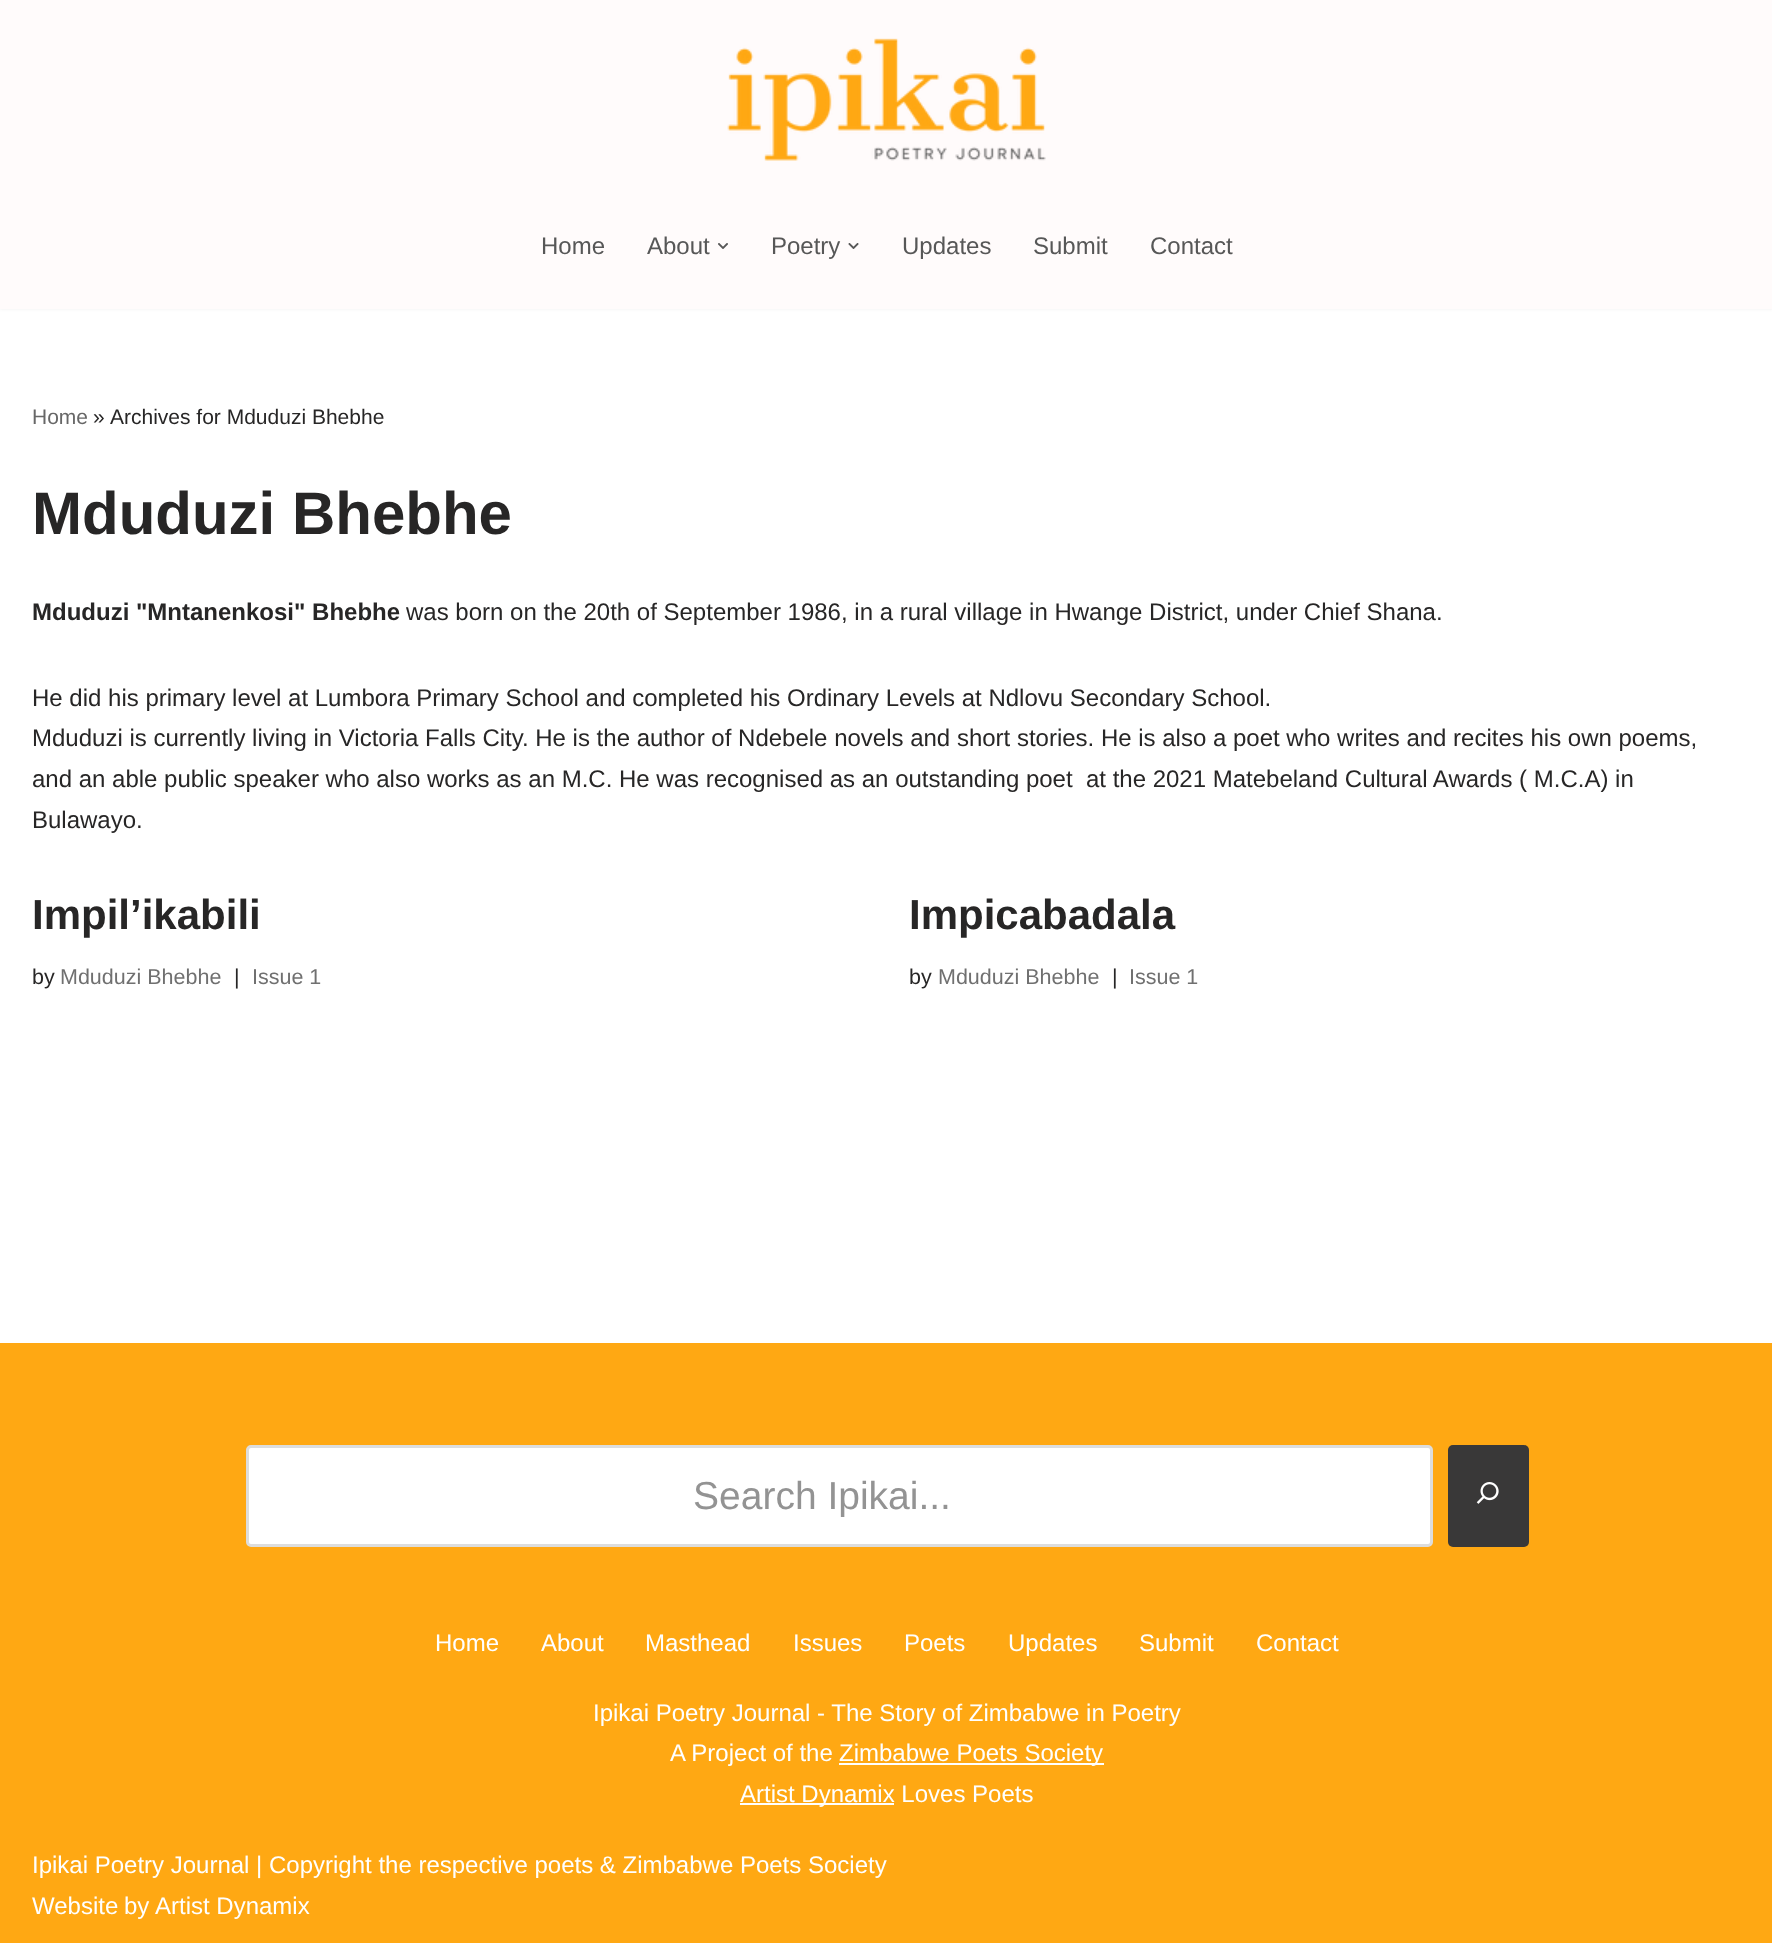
<?xml version="1.0" encoding="UTF-8"?>
<svg xmlns="http://www.w3.org/2000/svg" width="1772" height="1943">
    <defs>
        <filter id="blur1" x="-50%" y="-200%" width="200%" height="500%"><feGaussianBlur stdDeviation="2"/></filter>
    </defs>
    <rect width="100%" height="100%" fill="#FFFFFF"/>
    <rect x="0" y="-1" width="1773" height="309" fill="#000000" fill-opacity="0.1" filter="url(#blur1)"/>
    <rect x="0" y="0" width="1772" height="309" fill="#FFFBFB"/>
    <image x="727" y="38" width="319" height="123" href="img_01.png"/>
    <text x="541" y="254" font-family="Liberation Sans" font-size="24" fill="#575757">Home</text>
    <text x="647" y="254" font-family="Liberation Sans" font-size="24" fill="#575757">About</text>
    <image x="718" y="243" width="10" height="6" href="img_02.png"/>
    <text x="771" y="254" font-family="Liberation Sans" font-size="24" fill="#575757">Poetry</text>
    <image x="848" y="243" width="11" height="6" href="img_03.png"/>
    <text x="902" y="254" font-family="Liberation Sans" font-size="24" fill="#575757">Updates</text>
    <text x="1033" y="254" font-family="Liberation Sans" font-size="24" fill="#575757">Submit</text>
    <text x="1150" y="254" font-family="Liberation Sans" font-size="24" fill="#575757">Contact</text>
    <text x="32" y="424" font-family="Liberation Sans" font-size="21" fill="#676767">Home</text>
    <text x="93" y="424" font-family="Liberation Sans" font-size="21" fill="#272626">»</text>
    <text x="110" y="424" font-family="Liberation Sans" font-size="21" fill="#272626">Archives for Mduduzi Bhebhe</text>
    <text x="32" y="534" font-family="Liberation Sans" font-size="60" font-weight="700" fill="#272626">Mduduzi Bhebhe</text>
    <text x="32" y="620" font-family="Liberation Sans" font-size="24" font-weight="700" fill="#272626">Mduduzi "Mntanenkosi" Bhebhe</text>
    <text x="406" y="620" font-family="Liberation Sans" font-size="24" fill="#272626">was born on the 20th of September 1986, in a rural village in Hwange District, under Chief Shana.</text>
    <text font-family="Liberation Sans" font-size="24" fill="#272626" xml:space="preserve"><tspan x="32" y="706">He did his primary level at Lumbora Primary School and completed his Ordinary Levels at Ndlovu Secondary School.</tspan><tspan x="32" y="746">Mduduzi is currently living in Victoria Falls City. He is the author of Ndebele novels and short stories. He is also a poet who writes and recites his own poems,</tspan><tspan x="32" y="787">and an able public speaker who also works as an M.C. He was recognised as an outstanding poet  at the 2021 Matebeland Cultural Awards ( M.C.A) in</tspan><tspan x="32" y="828">Bulawayo.</tspan></text>
    <text x="32" y="929" font-family="Liberation Sans" font-size="42" font-weight="700" fill="#272626">Impil’ikabili</text>
    <text x="32" y="984" font-family="Liberation Sans" font-size="21.5" fill="#272626">by</text>
    <text x="60" y="984" font-family="Liberation Sans" font-size="21.5" fill="#707070">Mduduzi Bhebhe</text>
    <text x="234" y="984" font-family="Liberation Sans" font-size="21.5" fill="#272626">|</text>
    <text x="252" y="984" font-family="Liberation Sans" font-size="21.5" fill="#707070">Issue 1</text>
    <text x="909" y="929" font-family="Liberation Sans" font-size="42" font-weight="700" fill="#272626">Impicabadala</text>
    <text x="909" y="984" font-family="Liberation Sans" font-size="21.5" fill="#272626">by</text>
    <text x="938" y="984" font-family="Liberation Sans" font-size="21.5" fill="#707070">Mduduzi Bhebhe</text>
    <text x="1112" y="984" font-family="Liberation Sans" font-size="21.5" fill="#272626">|</text>
    <text x="1129" y="984" font-family="Liberation Sans" font-size="21.5" fill="#707070">Issue 1</text>
    <rect x="0" y="1343" width="1772" height="600" fill="#FFA813"/>
    <rect x="247.5" y="1446.5" width="1184" height="99" rx="3.5" fill="#FFFFFF" stroke="#DDDDDD" stroke-width="3"/>
    <text x="693" y="1509" font-family="Liberation Sans" font-size="39" fill="#939393">Search Ipikai...</text>
    <rect x="1448" y="1445" width="81" height="102" rx="5" fill="#393838"/>
    <image x="1476" y="1482" width="23" height="22" href="img_04.png"/>
    <text x="435" y="1651" font-family="Liberation Sans" font-size="24" fill="#FFFFFF">Home</text>
    <text x="541" y="1651" font-family="Liberation Sans" font-size="24" fill="#FFFFFF">About</text>
    <text x="645" y="1651" font-family="Liberation Sans" font-size="24" fill="#FFFFFF">Masthead</text>
    <text x="793" y="1651" font-family="Liberation Sans" font-size="24" fill="#FFFFFF">Issues</text>
    <text x="904" y="1651" font-family="Liberation Sans" font-size="24" fill="#FFFFFF">Poets</text>
    <text x="1008" y="1651" font-family="Liberation Sans" font-size="24" fill="#FFFFFF">Updates</text>
    <text x="1139" y="1651" font-family="Liberation Sans" font-size="24" fill="#FFFFFF">Submit</text>
    <text x="1256" y="1651" font-family="Liberation Sans" font-size="24" fill="#FFFFFF">Contact</text>
    <text x="593" y="1721" font-family="Liberation Sans" font-size="24" fill="#FFFFFF">Ipikai Poetry Journal - The Story of Zimbabwe in Poetry</text>
    <text x="670" y="1761" font-family="Liberation Sans" font-size="24" fill="#FFFFFF">A Project of the</text>
    <rect x="839" y="1763" width="265" height="2" fill="#FFFFFF"/>
    <text x="839" y="1761" font-family="Liberation Sans" font-size="24" fill="#FFFFFF">Zimbabwe Poets Society</text>
    <rect x="740" y="1803" width="154" height="2" fill="#FFFFFF"/>
    <text x="740" y="1802" font-family="Liberation Sans" font-size="24" fill="#FFFFFF">Artist Dynamix Loves Poets</text>
    <text font-family="Liberation Sans" font-size="24" fill="#FFFFFF">
        <tspan x="32" y="1873">Ipikai Poetry Journal | Copyright the respective poets &amp; Zimbabwe Poets Society</tspan>
        <tspan x="32" y="1914" word-spacing="-1">Website by</tspan>
    </text>
    <text x="155" y="1914" font-family="Liberation Sans" font-size="24" fill="#FFFFFF">Artist Dynamix</text>
</svg>
